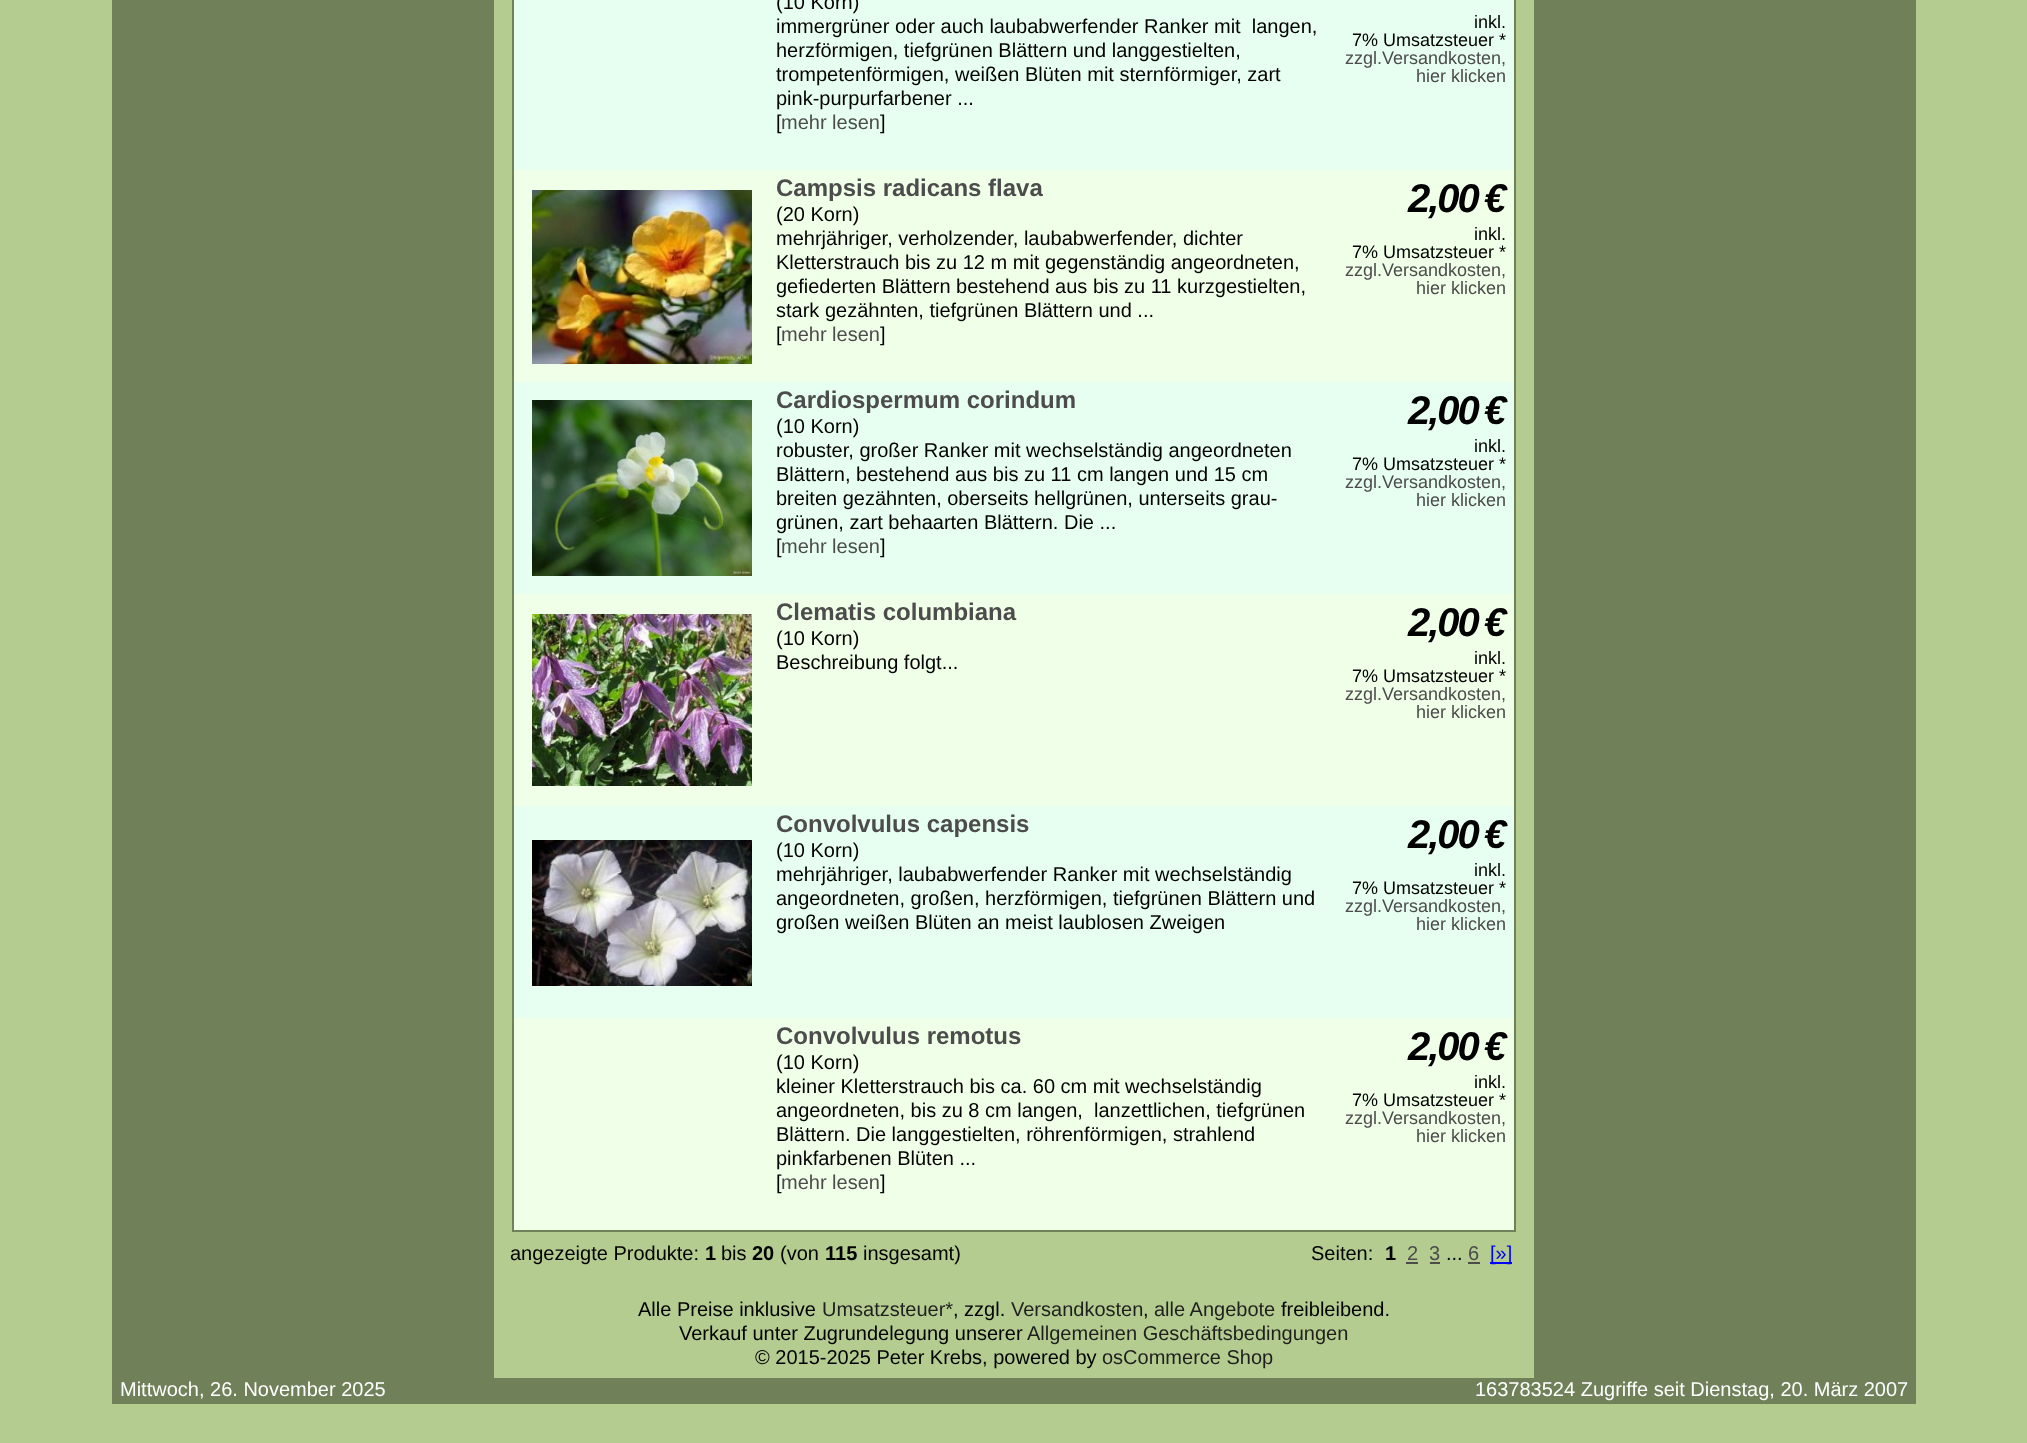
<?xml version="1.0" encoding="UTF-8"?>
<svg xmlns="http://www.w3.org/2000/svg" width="2027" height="1443">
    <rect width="100%" height="100%" fill="#B4CC8F"/>
    <rect x="113" y="-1" width="1802" height="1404" fill="none" stroke="#708059" stroke-width="2"/>
    <rect x="114" y="0" width="380" height="1378" fill="#708059"/>
    <rect x="513" y="-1" width="1002" height="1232" fill="none" stroke="#708059" stroke-width="2"/>
    <rect x="514" y="0" width="1000" height="170" fill="#E7FFF0"/>
    <text font-family="Liberation Sans" font-size="20" fill="#000000" xml:space="preserve"><tspan x="776" y="9">(10 Korn)</tspan><tspan x="776" y="33">immergrüner oder auch laubabwerfender Ranker mit  langen,</tspan><tspan x="776" y="57">herzförmigen, tiefgrünen Blättern und langgestielten,</tspan><tspan x="776" y="81">trompetenförmigen, weißen Blüten mit sternförmiger, zart</tspan><tspan x="776" y="105">pink-purpurfarbener ...</tspan><tspan x="776" y="129">[</tspan></text>
    <text x="781" y="129" font-family="Liberation Sans" font-size="20" fill="#4C4C4C">mehr lesen</text>
    <text x="880" y="129" font-family="Liberation Sans" font-size="20" fill="#000000">]</text>
    <text x="1474" y="28" font-family="Liberation Sans" font-size="18" fill="#000000">inkl.</text>
    <text x="1352" y="46" font-family="Liberation Sans" font-size="18" fill="#000000">7% Umsatzsteuer *</text>
    <text x="1345" y="64" font-family="Liberation Sans" font-size="18" fill="#4C4C4C">zzgl.Versandkosten,</text>
    <text x="1416" y="82" font-family="Liberation Sans" font-size="18" fill="#4C4C4C">hier klicken</text>
    <rect x="514" y="170" width="1000" height="212" fill="#F0FFE7"/>
    <image x="532" y="190" width="220" height="174" href="img_01.png"/>
    <text x="776" y="196" font-family="Liberation Sans" font-size="24" font-weight="700" fill="#4C4C4C">Campsis radicans flava</text>
    <text font-family="Liberation Sans" font-size="20" fill="#000000">
        <tspan x="776" y="221">(20 Korn)</tspan>
        <tspan x="776" y="245">mehrjähriger, verholzender, laubabwerfender, dichter</tspan>
        <tspan x="776" y="269">Kletterstrauch bis zu 12 m mit gegenständig angeordneten,</tspan>
        <tspan x="776" y="293">gefiederten Blättern bestehend aus bis zu 11 kurzgestielten,</tspan>
        <tspan x="776" y="317">stark gezähnten, tiefgrünen Blättern und ...</tspan>
        <tspan x="776" y="341">[</tspan>
    </text>
    <text x="781" y="341" font-family="Liberation Sans" font-size="20" fill="#4C4C4C">mehr lesen</text>
    <text x="880" y="341" font-family="Liberation Sans" font-size="20" fill="#000000">]</text>
    <text x="1408" y="212" font-family="Liberation Sans" font-size="40" font-weight="700" font-style="italic" letter-spacing="-2" fill="#000000">2,00</text>
    <text x="1484" y="212" font-family="Liberation Sans" font-size="40" font-weight="700" font-style="italic" letter-spacing="-2" fill="#000000">€</text>
    <text x="1474" y="240" font-family="Liberation Sans" font-size="18" fill="#000000">inkl.</text>
    <text x="1352" y="258" font-family="Liberation Sans" font-size="18" fill="#000000">7% Umsatzsteuer *</text>
    <text x="1345" y="276" font-family="Liberation Sans" font-size="18" fill="#4C4C4C">zzgl.Versandkosten,</text>
    <text x="1416" y="294" font-family="Liberation Sans" font-size="18" fill="#4C4C4C">hier klicken</text>
    <rect x="514" y="382" width="1000" height="212" fill="#E7FFF0"/>
    <image x="532" y="400" width="220" height="176" href="img_02.png"/>
    <text x="776" y="408" font-family="Liberation Sans" font-size="24" font-weight="700" fill="#4C4C4C">Cardiospermum corindum</text>
    <text font-family="Liberation Sans" font-size="20" fill="#000000">
        <tspan x="776" y="433">(10 Korn)</tspan>
        <tspan x="776" y="457">robuster, großer Ranker mit wechselständig angeordneten</tspan>
        <tspan x="776" y="481">Blättern, bestehend aus bis zu 11 cm langen und 15 cm</tspan>
        <tspan x="776" y="505">breiten gezähnten, oberseits hellgrünen, unterseits grau-</tspan>
        <tspan x="776" y="529">grünen, zart behaarten Blättern. Die ...</tspan>
        <tspan x="776" y="553">[</tspan>
    </text>
    <text x="781" y="553" font-family="Liberation Sans" font-size="20" fill="#4C4C4C">mehr lesen</text>
    <text x="880" y="553" font-family="Liberation Sans" font-size="20" fill="#000000">]</text>
    <text x="1408" y="424" font-family="Liberation Sans" font-size="40" font-weight="700" font-style="italic" letter-spacing="-2" fill="#000000">2,00</text>
    <text x="1484" y="424" font-family="Liberation Sans" font-size="40" font-weight="700" font-style="italic" letter-spacing="-2" fill="#000000">€</text>
    <text x="1474" y="452" font-family="Liberation Sans" font-size="18" fill="#000000">inkl.</text>
    <text x="1352" y="470" font-family="Liberation Sans" font-size="18" fill="#000000">7% Umsatzsteuer *</text>
    <text x="1345" y="488" font-family="Liberation Sans" font-size="18" fill="#4C4C4C">zzgl.Versandkosten,</text>
    <text x="1416" y="506" font-family="Liberation Sans" font-size="18" fill="#4C4C4C">hier klicken</text>
    <rect x="514" y="594" width="1000" height="212" fill="#F0FFE7"/>
    <image x="532" y="614" width="220" height="172" href="img_03.png"/>
    <text x="776" y="620" font-family="Liberation Sans" font-size="24" font-weight="700" fill="#4C4C4C">Clematis columbiana</text>
    <text font-family="Liberation Sans" font-size="20" fill="#000000">
        <tspan x="776" y="645">(10 Korn)</tspan>
        <tspan x="776" y="669">Beschreibung folgt...</tspan>
    </text>
    <text x="1408" y="636" font-family="Liberation Sans" font-size="40" font-weight="700" font-style="italic" letter-spacing="-2" fill="#000000">2,00</text>
    <text x="1484" y="636" font-family="Liberation Sans" font-size="40" font-weight="700" font-style="italic" letter-spacing="-2" fill="#000000">€</text>
    <text x="1474" y="664" font-family="Liberation Sans" font-size="18" fill="#000000">inkl.</text>
    <text x="1352" y="682" font-family="Liberation Sans" font-size="18" fill="#000000">7% Umsatzsteuer *</text>
    <text x="1345" y="700" font-family="Liberation Sans" font-size="18" fill="#4C4C4C">zzgl.Versandkosten,</text>
    <text x="1416" y="718" font-family="Liberation Sans" font-size="18" fill="#4C4C4C">hier klicken</text>
    <rect x="514" y="806" width="1000" height="212" fill="#E7FFF0"/>
    <image x="532" y="840" width="220" height="146" href="img_04.png"/>
    <text x="776" y="832" font-family="Liberation Sans" font-size="24" font-weight="700" fill="#4C4C4C">Convolvulus capensis</text>
    <text font-family="Liberation Sans" font-size="20" fill="#000000">
        <tspan x="776" y="857">(10 Korn)</tspan>
        <tspan x="776" y="881">mehrjähriger, laubabwerfender Ranker mit wechselständig</tspan>
        <tspan x="776" y="905">angeordneten, großen, herzförmigen, tiefgrünen Blättern und</tspan>
        <tspan x="776" y="929">großen weißen Blüten an meist laublosen Zweigen</tspan>
    </text>
    <text x="1408" y="848" font-family="Liberation Sans" font-size="40" font-weight="700" font-style="italic" letter-spacing="-2" fill="#000000">2,00</text>
    <text x="1484" y="848" font-family="Liberation Sans" font-size="40" font-weight="700" font-style="italic" letter-spacing="-2" fill="#000000">€</text>
    <text x="1474" y="876" font-family="Liberation Sans" font-size="18" fill="#000000">inkl.</text>
    <text x="1352" y="894" font-family="Liberation Sans" font-size="18" fill="#000000">7% Umsatzsteuer *</text>
    <text x="1345" y="912" font-family="Liberation Sans" font-size="18" fill="#4C4C4C">zzgl.Versandkosten,</text>
    <text x="1416" y="930" font-family="Liberation Sans" font-size="18" fill="#4C4C4C">hier klicken</text>
    <rect x="514" y="1018" width="1000" height="212" fill="#F0FFE7"/>
    <text x="776" y="1044" font-family="Liberation Sans" font-size="24" font-weight="700" fill="#4C4C4C">Convolvulus remotus</text>
    <text font-family="Liberation Sans" font-size="20" fill="#000000" xml:space="preserve"><tspan x="776" y="1069">(10 Korn)</tspan><tspan x="776" y="1093">kleiner Kletterstrauch bis ca. 60 cm mit wechselständig</tspan><tspan x="776" y="1117">angeordneten, bis zu 8 cm langen,  lanzettlichen, tiefgrünen</tspan><tspan x="776" y="1141">Blättern. Die langgestielten, röhrenförmigen, strahlend</tspan><tspan x="776" y="1165">pinkfarbenen Blüten ...</tspan><tspan x="776" y="1189">[</tspan></text>
    <text x="781" y="1189" font-family="Liberation Sans" font-size="20" fill="#4C4C4C">mehr lesen</text>
    <text x="880" y="1189" font-family="Liberation Sans" font-size="20" fill="#000000">]</text>
    <text x="1408" y="1060" font-family="Liberation Sans" font-size="40" font-weight="700" font-style="italic" letter-spacing="-2" fill="#000000">2,00</text>
    <text x="1484" y="1060" font-family="Liberation Sans" font-size="40" font-weight="700" font-style="italic" letter-spacing="-2" fill="#000000">€</text>
    <text x="1474" y="1088" font-family="Liberation Sans" font-size="18" fill="#000000">inkl.</text>
    <text x="1352" y="1106" font-family="Liberation Sans" font-size="18" fill="#000000">7% Umsatzsteuer *</text>
    <text x="1345" y="1124" font-family="Liberation Sans" font-size="18" fill="#4C4C4C">zzgl.Versandkosten,</text>
    <text x="1416" y="1142" font-family="Liberation Sans" font-size="18" fill="#4C4C4C">hier klicken</text>
    <text x="510" y="1260" font-family="Liberation Sans" font-size="20" fill="#000000">angezeigte Produkte:</text>
    <text x="705" y="1260" font-family="Liberation Sans" font-size="20" font-weight="700" fill="#000000">1</text>
    <text x="721" y="1260" font-family="Liberation Sans" font-size="20" fill="#000000">bis</text>
    <text x="752" y="1260" font-family="Liberation Sans" font-size="20" font-weight="700" fill="#000000">20</text>
    <text x="780" y="1260" font-family="Liberation Sans" font-size="20" fill="#000000">(von</text>
    <text x="825" y="1260" font-family="Liberation Sans" font-size="20" font-weight="700" fill="#000000">115</text>
    <text x="863" y="1260" font-family="Liberation Sans" font-size="20" fill="#000000">insgesamt)</text>
    <text x="1311" y="1260" font-family="Liberation Sans" font-size="20" fill="#000000">Seiten:</text>
    <text x="1385" y="1260" font-family="Liberation Sans" font-size="20" font-weight="700" fill="#000000">1</text>
    <text x="1407" y="1260" font-family="Liberation Sans" font-size="20" fill="#4C4C4C">2</text>
    <rect x="1406" y="1262" width="12" height="2" fill="#4C4C4C"/>
    <text x="1429" y="1260" font-family="Liberation Sans" font-size="20" fill="#4C4C4C">3</text>
    <rect x="1430" y="1262" width="10" height="2" fill="#4C4C4C"/>
    <text x="1446" y="1260" font-family="Liberation Sans" font-size="20" fill="#000000">...</text>
    <text x="1468" y="1260" font-family="Liberation Sans" font-size="20" fill="#4C4C4C">6</text>
    <rect x="1468" y="1262" width="12" height="2" fill="#4C4C4C"/>
    <rect x="1490" y="1262" width="22" height="2" fill="#0000FF"/>
    <text x="1490" y="1260" font-family="Liberation Sans" font-size="20" fill="#0000FF">[»]</text>
    <rect x="1534" y="0" width="380" height="1378" fill="#708059"/>
    <text x="638" y="1316" font-family="Liberation Sans" font-size="20" fill="#000000">Alle Preise inklusive</text>
    <text x="822" y="1316" font-family="Liberation Sans" font-size="20" fill="#1F1F1F">Umsatzsteuer*</text>
    <text x="953" y="1316" font-family="Liberation Sans" font-size="20" fill="#000000">, zzgl.</text>
    <text x="1011" y="1316" font-family="Liberation Sans" font-size="20" fill="#1F1F1F">Versandkosten</text>
    <text x="1143" y="1316" font-family="Liberation Sans" font-size="20" fill="#000000">,</text>
    <text x="1154" y="1316" font-family="Liberation Sans" font-size="20" fill="#1F1F1F">alle Angebote</text>
    <text x="1281" y="1316" font-family="Liberation Sans" font-size="20" fill="#000000">freibleibend.</text>
    <text x="679" y="1340" font-family="Liberation Sans" font-size="20" fill="#000000">Verkauf unter Zugrundelegung unserer</text>
    <text x="1027" y="1340" font-family="Liberation Sans" font-size="20" fill="#1F1F1F">Allgemeinen Geschäftsbedingungen</text>
    <text x="755" y="1364" font-family="Liberation Sans" font-size="20" fill="#000000">© 2015-2025 Peter Krebs, powered by</text>
    <text x="1102" y="1364" font-family="Liberation Sans" font-size="20" fill="#1F1F1F">osCommerce Shop</text>
    <rect x="114" y="1378" width="1800" height="24" fill="#708059"/>
    <text x="120" y="1396" font-family="Liberation Sans" font-size="20" fill="#FFFFFF">Mittwoch, 26. November 2025</text>
    <text x="1475" y="1396" font-family="Liberation Sans" font-size="20" fill="#FFFFFF">163783524 Zugriffe seit Dienstag, 20. März 2007</text>
</svg>
